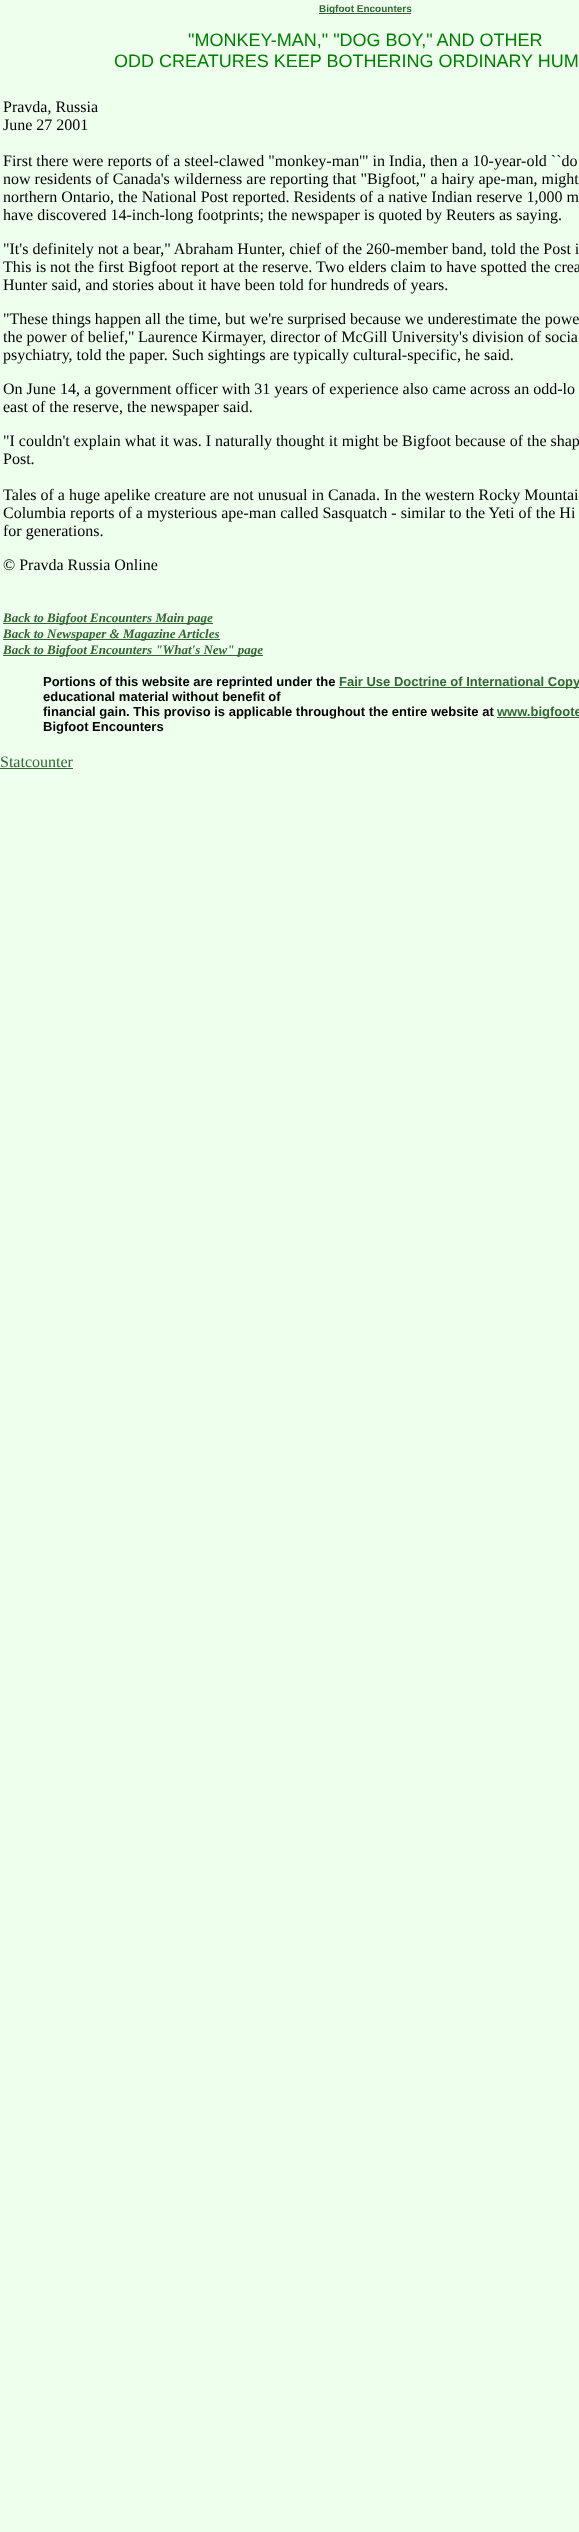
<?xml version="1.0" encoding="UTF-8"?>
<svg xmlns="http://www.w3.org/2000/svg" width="579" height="2532">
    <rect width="100%" height="100%" fill="#EEFFEE"/>
    <rect x="319" y="13" width="92" height="1" fill="#336633"/>
    <text x="319" y="12" font-family="Liberation Sans" font-size="10" font-weight="700" fill="#336633">Bigfoot Encounters</text>
    <text x="188" y="46" font-family="Liberation Sans" font-size="18" fill="#008000">"MONKEY-MAN," "DOG BOY," AND OTHER</text>
    <text x="114" y="67" font-family="Liberation Sans" font-size="18" fill="#008000">ODD CREATURES KEEP BOTHERING ORDINARY HUM</text>
    <text font-family="Liberation Serif" font-size="16" fill="#000000">
        <tspan x="3" y="112">Pravda, Russia</tspan>
        <tspan x="3" y="130">June 27 2001</tspan>
    </text>
    <text font-family="Liberation Serif" font-size="16" fill="#000000">
        <tspan x="3" y="166">First there were reports of a steel-clawed "monkey-man'" in India, then a 10-year-old ``do</tspan>
        <tspan x="3" y="184">now residents of Canada's wilderness are reporting that "Bigfoot," a hairy ape-man, might</tspan>
        <tspan x="3" y="202">northern Ontario, the National Post reported. Residents of a native Indian reserve 1,000 m</tspan>
        <tspan x="3" y="220">have discovered 14-inch-long footprints; the newspaper is quoted by Reuters as saying.</tspan>
    </text>
    <text font-family="Liberation Serif" font-size="16" fill="#000000">
        <tspan x="3" y="254">"It's definitely not a bear," Abraham Hunter, chief of the 260-member band, told the Post i</tspan>
        <tspan x="3" y="272">This is not the first Bigfoot report at the reserve. Two elders claim to have spotted the crea</tspan>
        <tspan x="3" y="290">Hunter said, and stories about it have been told for hundreds of years.</tspan>
    </text>
    <text font-family="Liberation Serif" font-size="16" fill="#000000">
        <tspan x="3" y="324">"These things happen all the time, but we're surprised because we underestimate the powe</tspan>
        <tspan x="3" y="342">the power of belief,'' Laurence Kirmayer, director of McGill University's division of socia</tspan>
        <tspan x="3" y="360">psychiatry, told the paper. Such sightings are typically cultural-specific, he said.</tspan>
    </text>
    <text font-family="Liberation Serif" font-size="16" fill="#000000">
        <tspan x="3" y="394">On June 14, a government officer with 31 years of experience also came across an odd-lo</tspan>
        <tspan x="3" y="412">east of the reserve, the newspaper said.</tspan>
    </text>
    <text font-family="Liberation Serif" font-size="16" fill="#000000">
        <tspan x="3" y="446">"I couldn't explain what it was. I naturally thought it might be Bigfoot because of the shap</tspan>
        <tspan x="3" y="464">Post.</tspan>
    </text>
    <text font-family="Liberation Serif" font-size="16" fill="#000000">
        <tspan x="3" y="500">Tales of a huge apelike creature are not unusual in Canada. In the western Rocky Mountai</tspan>
        <tspan x="3" y="518">Columbia reports of a mysterious ape-man called Sasquatch - similar to the Yeti of the Hi</tspan>
        <tspan x="3" y="536">for generations.</tspan>
    </text>
    <text x="3" y="570" font-family="Liberation Serif" font-size="16" fill="#000000">© Pravda Russia Online</text>
    <rect x="3" y="623" width="210" height="1" fill="#336633"/>
    <text x="3" y="622" font-family="Liberation Serif" font-size="13" font-weight="700" font-style="italic" fill="#336633">Back to Bigfoot Encounters Main page</text>
    <rect x="3" y="639" width="217" height="1" fill="#336633"/>
    <text x="3" y="638" font-family="Liberation Serif" font-size="13" font-weight="700" font-style="italic" fill="#336633">Back to Newspaper &amp; Magazine Articles</text>
    <rect x="3" y="655" width="260" height="1" fill="#336633"/>
    <text x="3" y="654" font-family="Liberation Serif" font-size="13" font-weight="700" font-style="italic" fill="#336633">Back to Bigfoot Encounters "What's New" page</text>
    <text x="43" y="686" font-family="Liberation Sans" font-size="13" font-weight="700" fill="#000000">Portions of this website are reprinted under the</text>
    <rect x="339" y="687" width="240" height="1" fill="#336633"/>
    <text x="339" y="686" font-family="Liberation Sans" font-size="13" font-weight="700" fill="#336633">Fair Use Doctrine of International Copy</text>
    <text font-family="Liberation Sans" font-size="13" font-weight="700" fill="#000000">
        <tspan x="43" y="701">educational material without benefit of</tspan>
        <tspan x="43" y="716">financial gain. This proviso is applicable throughout the entire website at</tspan>
    </text>
    <rect x="497" y="717" width="82" height="1" fill="#336633"/>
    <text x="497" y="716" font-family="Liberation Sans" font-size="13" font-weight="700" fill="#336633">www.bigfoote</text>
    <text x="43" y="731" font-family="Liberation Sans" font-size="13" font-weight="700" fill="#000000">Bigfoot Encounters</text>
    <text x="0" y="767" font-family="Liberation Serif" font-size="16" fill="#336633">Statcounter</text>
    <rect x="0" y="768" width="73" height="1" fill="#336633"/>
</svg>
